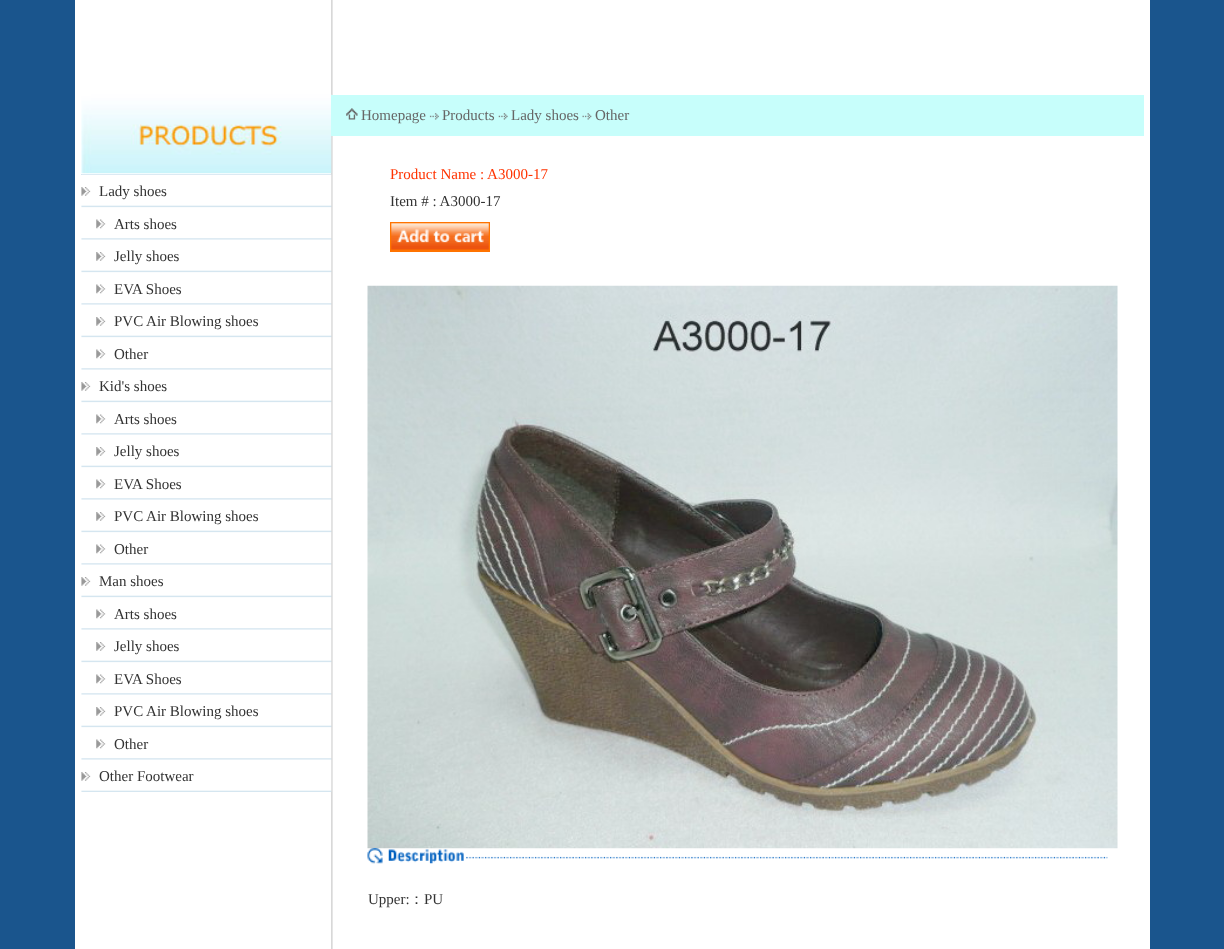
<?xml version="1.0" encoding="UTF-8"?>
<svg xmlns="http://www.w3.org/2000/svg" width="1224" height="949">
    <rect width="100%" height="100%" fill="#1A558D"/>
    <rect x="75" y="0" width="1075" height="949" fill="#FFFFFF"/>
    <image x="331" y="0" width="2" height="949" href="img_01.png"/>
    <rect x="81" y="174" width="250" height="1" fill="#D0E3EE"/>
    <image x="81" y="94" width="251" height="80" href="img_02.png"/>
    <image x="81" y="174" width="251" height="618" href="img_03.png"/>
    <image x="81" y="187" width="10" height="9" href="img_04.png"/>
    <text x="99" y="196" font-family="Liberation Serif" font-size="15" fill="#333333">Lady shoes</text>
    <image x="96" y="219" width="10" height="10" href="img_05.png"/>
    <text x="114" y="229" font-family="Liberation Serif" font-size="15" fill="#333333">Arts shoes</text>
    <image x="96" y="252" width="10" height="9" href="img_06.png"/>
    <text x="114" y="261" font-family="Liberation Serif" font-size="15" fill="#333333">Jelly shoes</text>
    <image x="96" y="284" width="10" height="10" href="img_05.png"/>
    <text x="114" y="294" font-family="Liberation Serif" font-size="15" fill="#333333">EVA Shoes</text>
    <image x="96" y="317" width="10" height="9" href="img_06.png"/>
    <text x="114" y="326" font-family="Liberation Serif" font-size="15" fill="#333333">PVC Air Blowing shoes</text>
    <image x="96" y="349" width="10" height="10" href="img_05.png"/>
    <text x="114" y="359" font-family="Liberation Serif" font-size="15" fill="#333333">Other</text>
    <image x="81" y="382" width="10" height="9" href="img_04.png"/>
    <text x="99" y="391" font-family="Liberation Serif" font-size="15" fill="#333333">Kid's shoes</text>
    <image x="96" y="414" width="10" height="10" href="img_05.png"/>
    <text x="114" y="424" font-family="Liberation Serif" font-size="15" fill="#333333">Arts shoes</text>
    <image x="96" y="447" width="10" height="9" href="img_06.png"/>
    <text x="114" y="456" font-family="Liberation Serif" font-size="15" fill="#333333">Jelly shoes</text>
    <image x="96" y="479" width="10" height="10" href="img_05.png"/>
    <text x="114" y="489" font-family="Liberation Serif" font-size="15" fill="#333333">EVA Shoes</text>
    <image x="96" y="512" width="10" height="9" href="img_06.png"/>
    <text x="114" y="521" font-family="Liberation Serif" font-size="15" fill="#333333">PVC Air Blowing shoes</text>
    <image x="96" y="544" width="10" height="10" href="img_05.png"/>
    <text x="114" y="554" font-family="Liberation Serif" font-size="15" fill="#333333">Other</text>
    <image x="81" y="577" width="10" height="9" href="img_04.png"/>
    <text x="99" y="586" font-family="Liberation Serif" font-size="15" fill="#333333">Man shoes</text>
    <image x="96" y="609" width="10" height="10" href="img_05.png"/>
    <text x="114" y="619" font-family="Liberation Serif" font-size="15" fill="#333333">Arts shoes</text>
    <image x="96" y="642" width="10" height="9" href="img_06.png"/>
    <text x="114" y="651" font-family="Liberation Serif" font-size="15" fill="#333333">Jelly shoes</text>
    <image x="96" y="674" width="10" height="10" href="img_05.png"/>
    <text x="114" y="684" font-family="Liberation Serif" font-size="15" fill="#333333">EVA Shoes</text>
    <image x="96" y="707" width="10" height="9" href="img_06.png"/>
    <text x="114" y="716" font-family="Liberation Serif" font-size="15" fill="#333333">PVC Air Blowing shoes</text>
    <image x="96" y="739" width="10" height="10" href="img_05.png"/>
    <text x="114" y="749" font-family="Liberation Serif" font-size="15" fill="#333333">Other</text>
    <image x="81" y="772" width="10" height="9" href="img_04.png"/>
    <text x="99" y="781" font-family="Liberation Serif" font-size="15" fill="#333333">Other Footwear</text>
    <rect x="331" y="95" width="813" height="41" fill="#C7FEFB"/>
    <image x="346" y="108" width="12" height="12" href="img_07.png"/>
    <text x="361" y="120" font-family="Liberation Serif" font-size="15" fill="#666666">Homepage</text>
    <image x="429" y="113" width="10" height="7" href="img_08.png"/>
    <text x="442" y="120" font-family="Liberation Serif" font-size="15" fill="#666666">Products</text>
    <image x="498" y="113" width="10" height="7" href="img_09.png"/>
    <text x="511" y="120" font-family="Liberation Serif" font-size="15" fill="#666666">Lady shoes</text>
    <image x="582" y="113" width="10" height="7" href="img_10.png"/>
    <text x="595" y="120" font-family="Liberation Serif" font-size="15" fill="#666666">Other</text>
    <text x="390" y="179" font-family="Liberation Serif" font-size="15" fill="#FF3300">Product Name : A3000-17</text>
    <text x="390" y="206" font-family="Liberation Serif" font-size="15" fill="#333333">Item # : A3000-17</text>
    <image x="390" y="222" width="100" height="30" href="img_11.png"/>
    <image x="367" y="285" width="751" height="564" href="img_12.png"/>
    <image x="367" y="848" width="741" height="16" href="img_13.png"/>
    <text x="368" y="904" font-family="Liberation Serif" font-size="15" fill="#333333">Upper:</text>
    <text x="409" y="904" font-family="WenQuanYi Zen Hei" font-size="15" font-weight="500" fill="#333333">：</text>
    <text x="424" y="904" font-family="Liberation Serif" font-size="15" fill="#333333">PU</text>
</svg>
